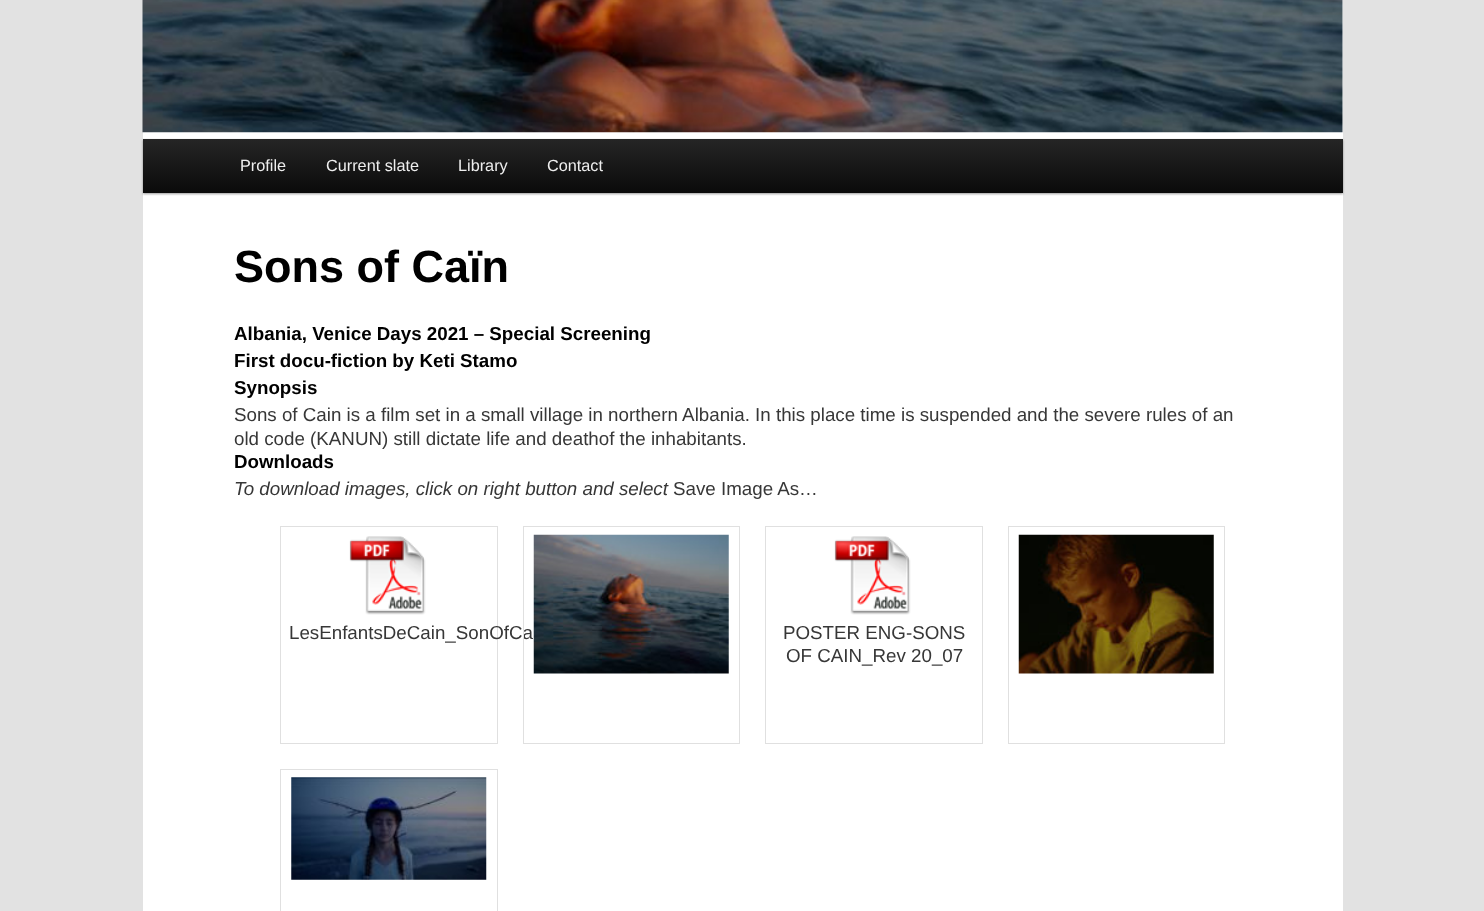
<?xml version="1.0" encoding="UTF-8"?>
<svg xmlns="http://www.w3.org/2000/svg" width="1484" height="911">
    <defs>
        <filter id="blur1" x="-50%" y="-200%" width="200%" height="500%"><feGaussianBlur stdDeviation="1"/></filter>
        <linearGradient id="g1" gradientUnits="userSpaceOnUse" x1="743" y1="139" x2="743" y2="193"><stop offset="0" stop-color="#252525"/><stop offset="1" stop-color="#0A0A0A"/></linearGradient>
    </defs>
    <rect width="100%" height="100%" fill="#E2E2E2"/>
    <rect x="143" y="0" width="1200" height="911" fill="#FFFFFF"/>
    <image x="142" y="0" width="1201" height="133" href="img_01.png"/>
    <rect x="143" y="140" width="1200" height="54" fill="#000000" fill-opacity="0.4" filter="url(#blur1)"/>
    <rect x="143" y="139" width="1200" height="54" fill="url(#g1)"/>
    <text x="240" y="171" font-family="Liberation Sans" font-size="16.25" fill="#EEEEEE">Profile</text>
    <text x="326" y="171" font-family="Liberation Sans" font-size="16.25" fill="#EEEEEE">Current slate</text>
    <text x="458" y="171" font-family="Liberation Sans" font-size="16.25" fill="#EEEEEE">Library</text>
    <text x="547" y="171" font-family="Liberation Sans" font-size="16.25" fill="#EEEEEE">Contact</text>
    <text x="234" y="282" font-family="Liberation Sans" font-size="45" font-weight="700" fill="#000000">Sons of Caïn</text>
    <text font-family="Liberation Sans" font-size="18.75" font-weight="700" fill="#000000">
        <tspan x="234" y="340">Albania, Venice Days 2021 – Special Screening</tspan>
        <tspan x="234" y="367">First docu-fiction by Keti Stamo</tspan>
        <tspan x="234" y="394">Synopsis</tspan>
    </text>
    <text font-family="Liberation Sans" font-size="18.75" fill="#373737">
        <tspan x="234" y="421">Sons of Cain is a film set in a small village in northern Albania. In this place time is suspended and the severe rules of an</tspan>
        <tspan x="234" y="445">old code (KANUN) still dictate life and deathof the inhabitants.</tspan>
    </text>
    <text x="234" y="468" font-family="Liberation Sans" font-size="18.75" font-weight="700" fill="#000000">Downloads</text>
    <text x="234" y="495" font-family="Liberation Sans" font-size="18.75" font-style="italic" fill="#373737">To download images, click on right button and select</text>
    <text x="673" y="495" font-family="Liberation Sans" font-size="18.75" fill="#373737">Save Image As…</text>
    <rect x="280.5" y="526.5" width="217" height="217" fill="none" stroke="#E0E0E0"/>
    <image x="349" y="536" width="77" height="79" href="img_02.png"/>
    <text x="289" y="639" font-family="Liberation Sans" font-size="18.75" fill="#373737">LesEnfantsDeCain_SonOfCa</text>
    <rect x="523.5" y="526.5" width="216" height="217" fill="none" stroke="#E0E0E0"/>
    <image x="533" y="534" width="196" height="140" href="img_03.png"/>
    <rect x="765.5" y="526.5" width="217" height="217" fill="none" stroke="#E0E0E0"/>
    <image x="834" y="536" width="77" height="79" href="img_02.png"/>
    <text x="783" y="639" font-family="Liberation Sans" font-size="18.75" fill="#373737">POSTER ENG-SONS</text>
    <text x="786" y="662" font-family="Liberation Sans" font-size="18.75" fill="#373737">OF CAIN_Rev 20_07</text>
    <rect x="1008.5" y="526.5" width="216" height="217" fill="none" stroke="#E0E0E0"/>
    <image x="1018" y="534" width="196" height="140" href="img_04.png"/>
    <rect x="280.5" y="769.5" width="217" height="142" fill="none" stroke="#E0E0E0"/>
    <image x="291" y="777" width="196" height="103" href="img_05.png"/>
</svg>
